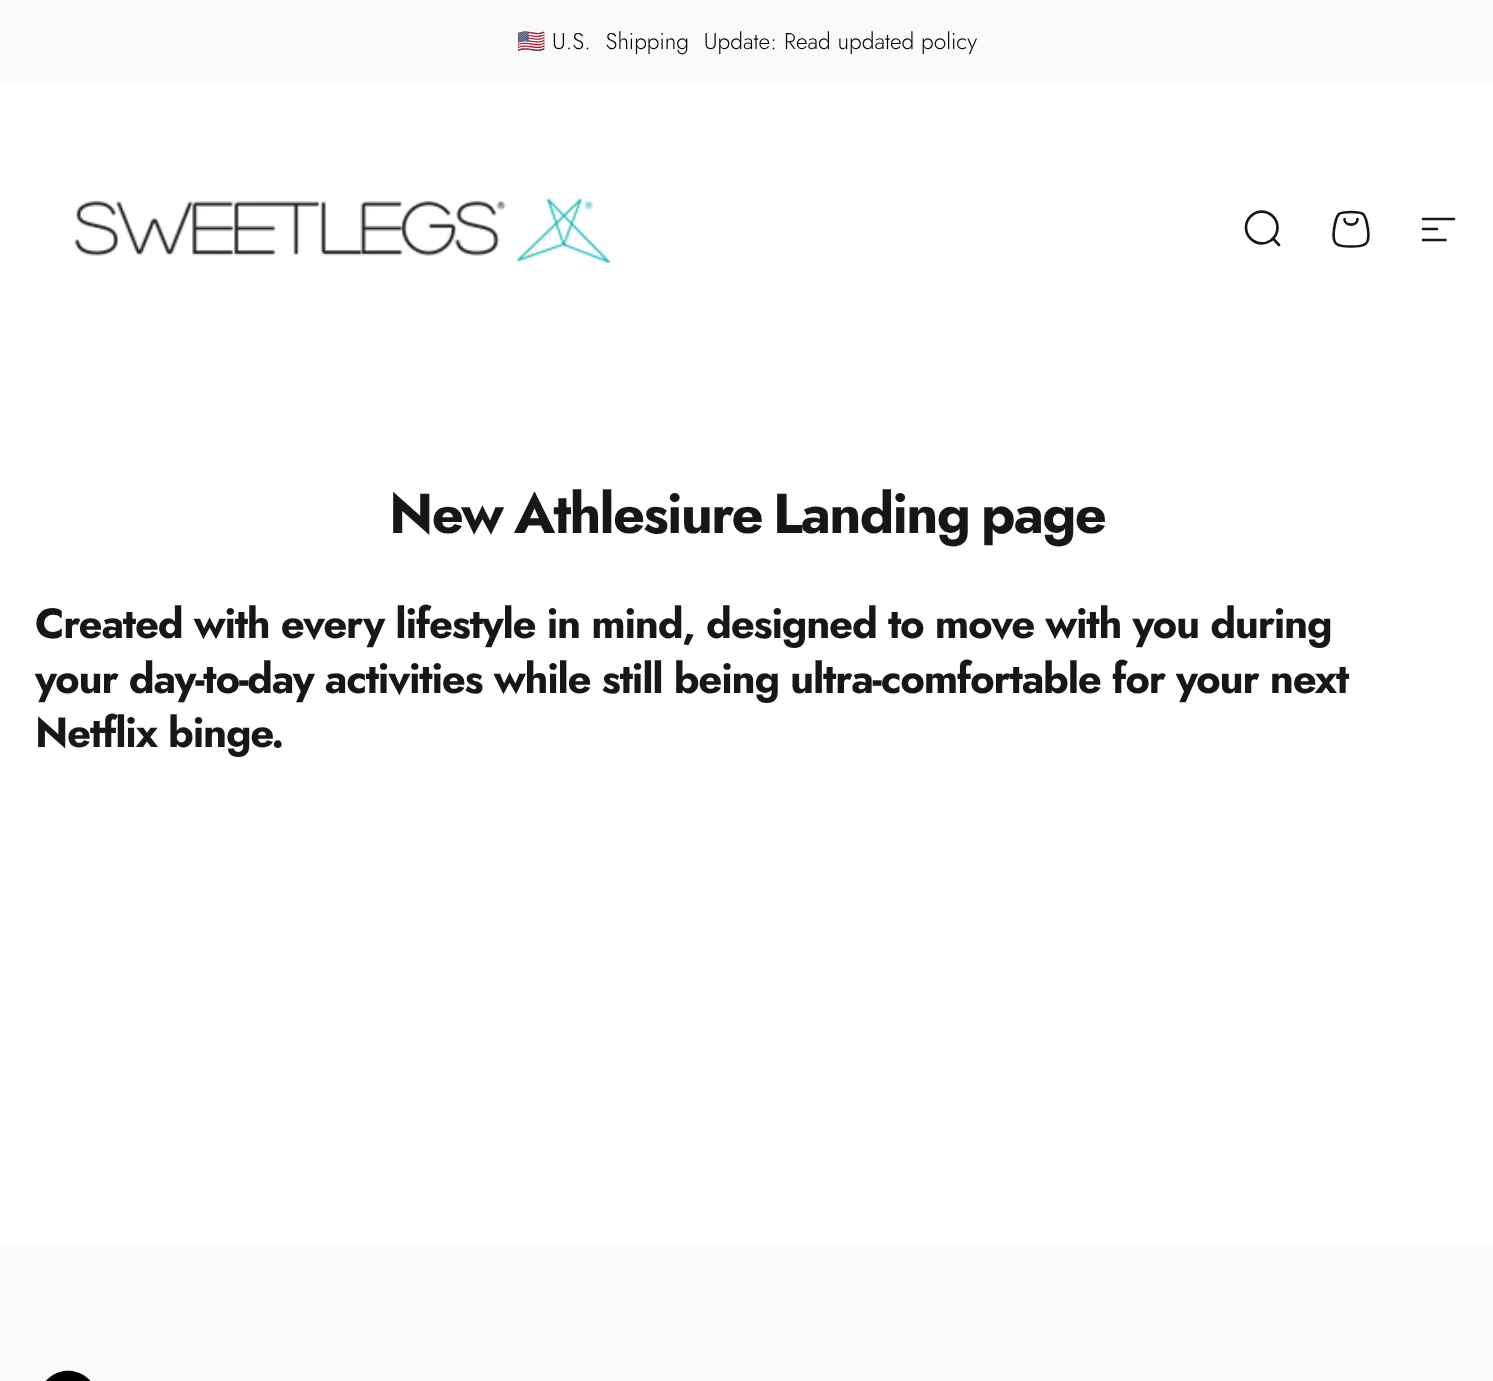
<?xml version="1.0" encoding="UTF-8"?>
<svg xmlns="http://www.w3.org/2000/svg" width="1493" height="1381">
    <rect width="100%" height="100%" fill="#FFFFFF"/>
    <rect x="0" y="0" width="1493" height="84" fill="#FAFAFA"/>
    <text x="517" y="49" font-family="Noto Color Emoji" font-size="22.75" fill="#000000">🇺🇸</text>
    <text x="552" y="49" word-spacing="8" font-family="Jost" font-size="22.75" font-weight="300" fill="#000000">U.S. Shipping Update:</text>
    <text x="784" y="49" font-family="Jost" font-size="22.75" font-weight="300" fill="#000000">Read updated policy</text>
    <image x="74" y="197" width="538" height="67" href="img_01.png"/>
    <path d="M 1279 245 L 1273 238.5 M 1273 238.5 C 1279 232.5 1279 222.5 1273 216.5 C 1266.5 210 1257 210 1250.5 216.5 C 1244.5 222.5 1244.5 232.5 1250.5 238.5 C 1257 245 1266.5 245 1273 238.5 Z" fill="none" stroke="#171717" stroke-width="2.6" stroke-linecap="round"/>
    <path d="M 1357.5 219 C 1357.5 226.5 1344.5 226.5 1344.5 219 M 1368 229.5 C 1370 244.5 1366 246.5 1351 246.5 C 1336 246.5 1332 244.5 1334 229.5 C 1336.5 212 1338.5 212 1351 212 C 1363.5 212 1365.5 212 1368 229.5 Z" fill="none" stroke="#171717" stroke-width="2.6" stroke-linecap="round" stroke-linejoin="round"/>
    <path d="M 1423 219 H 1454 M 1423 229 H 1437 M 1423 240 H 1445.5" fill="none" stroke="#171717" stroke-width="2.6" stroke-linecap="round"/>
    <text x="389" y="533" font-family="Jost" font-size="56" font-weight="700" letter-spacing="-1.75" fill="#171717">New</text>
    <text x="514" y="533" font-family="Jost" font-size="56" font-weight="700" letter-spacing="-1.75" fill="#171717">Athlesiure</text>
    <text x="773" y="533" font-family="Jost" font-size="56" font-weight="700" letter-spacing="-1.75" fill="#171717">Landing</text>
    <text x="981" y="533" font-family="Jost" font-size="56" font-weight="700" letter-spacing="-1.75" fill="#171717">page</text>
    <text font-family="Jost" font-size="42" font-weight="700" letter-spacing="-1.25" fill="#171717">
        <tspan x="35" y="638">Created with every lifestyle in mind, designed to move with you during</tspan>
        <tspan x="35" y="693">your day-to-day activities while still being ultra-comfortable for your next</tspan>
        <tspan x="35" y="747">Netflix binge.</tspan>
    </text>
    <rect x="0" y="1243" width="1493" height="138" fill="#FAFAFA"/>
    <image x="45" y="1370" width="46" height="11" href="img_02.png"/>
</svg>
